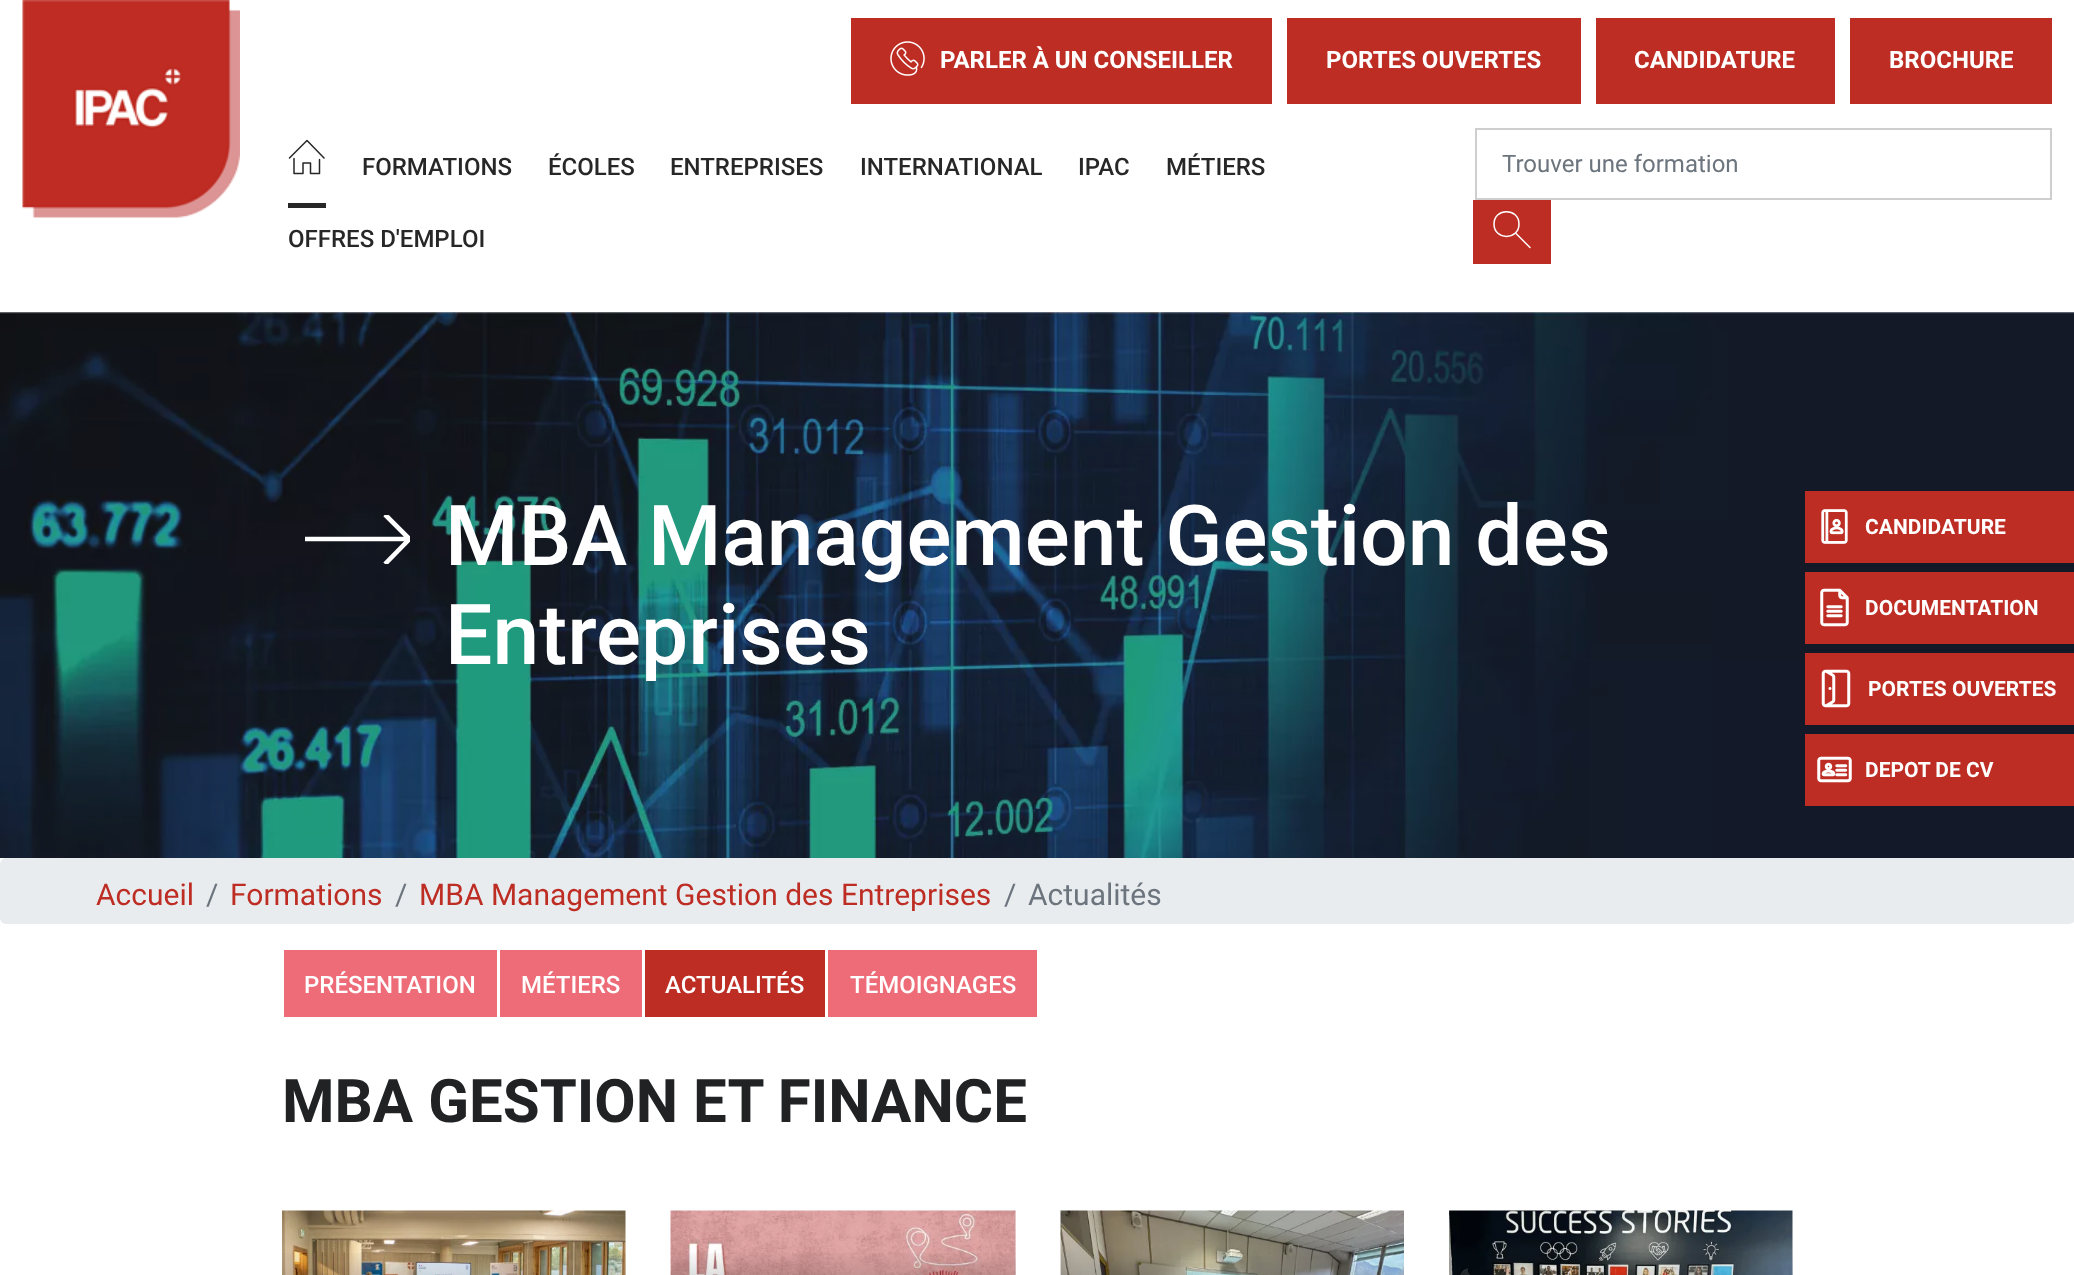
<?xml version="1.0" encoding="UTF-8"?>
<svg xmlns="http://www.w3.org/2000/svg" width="2074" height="1275">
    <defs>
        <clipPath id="clip1"><rect x="305" y="515" width="105" height="49"/></clipPath>
        <linearGradient id="g1" gradientUnits="userSpaceOnUse" x1="454" y1="1248" x2="454" y2="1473"><stop offset="0" stop-color="#000000" stop-opacity="0"/><stop offset="1" stop-color="#000000"/></linearGradient>
        <linearGradient id="g2" gradientUnits="userSpaceOnUse" x1="843" y1="1248" x2="843" y2="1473"><stop offset="0" stop-color="#000000" stop-opacity="0"/><stop offset="1" stop-color="#000000"/></linearGradient>
        <linearGradient id="g3" gradientUnits="userSpaceOnUse" x1="1621" y1="1248" x2="1621" y2="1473"><stop offset="0" stop-color="#000000" stop-opacity="0"/><stop offset="1" stop-color="#000000"/></linearGradient>
    </defs>
    <rect width="100%" height="100%" fill="#FFFFFF"/>
    <image x="22" y="0" width="218" height="218" href="img_01.png"/>
    <rect x="851" y="18" width="421" height="86" fill="#BE2D24"/>
    <image x="890" y="41" width="35" height="35" href="img_02.png"/>
    <text x="940" y="68" font-family="Roboto" font-size="24" font-weight="700" fill="#FFFFFF">PARLER À UN CONSEILLER</text>
    <rect x="1287" y="18" width="294" height="86" fill="#BE2D24"/>
    <text x="1326" y="68" font-family="Roboto" font-size="24" font-weight="700" fill="#FFFFFF">PORTES OUVERTES</text>
    <rect x="1596" y="18" width="239" height="86" fill="#BE2D24"/>
    <text x="1634" y="68" font-family="Roboto" font-size="24" font-weight="700" fill="#FFFFFF">CANDIDATURE</text>
    <rect x="1850" y="18" width="202" height="86" fill="#BE2D24"/>
    <text x="1889" y="68" font-family="Roboto" font-size="24" font-weight="700" fill="#FFFFFF">BROCHURE</text>
    <path d="M 294 158.5 V 173.5 H 303 V 163 H 310.5 V 173.5 H 319.5 V 159.5 M 289.5 158 L 307 140.5 L 324 158" fill="none" stroke="#272727" stroke-width="1.5" stroke-linecap="round" stroke-linejoin="round"/>
    <rect x="288" y="203" width="38" height="5" fill="#272727"/>
    <text x="362" y="175" font-family="Roboto" font-size="24" font-weight="500" fill="#272727">FORMATIONS</text>
    <text x="548" y="175" font-family="Roboto" font-size="24" font-weight="500" fill="#272727">ÉCOLES</text>
    <text x="670" y="175" font-family="Roboto" font-size="24" font-weight="500" fill="#272727">ENTREPRISES</text>
    <text x="860" y="175" font-family="Roboto" font-size="24" font-weight="500" fill="#272727">INTERNATIONAL</text>
    <text x="1078" y="175" font-family="Roboto" font-size="24" font-weight="500" fill="#272727">IPAC</text>
    <text x="1166" y="175" font-family="Roboto" font-size="24" font-weight="500" fill="#272727">MÉTIERS</text>
    <text x="288" y="247" font-family="Roboto" font-size="24" font-weight="500" fill="#272727">OFFRES D'EMPLOI</text>
    <rect x="1476" y="129" width="575" height="70" fill="none" stroke="#CECECE" stroke-width="2"/>
    <text x="1502" y="172" font-family="Roboto" font-size="24" fill="#6C757D">Trouver une formation</text>
    <rect x="1473" y="200" width="78" height="64" fill="#BE2D24"/>
    <path d="M 1519 224 C 1519 240.5 1494 240.5 1494 224 C 1494 207.5 1519 207.5 1519 224 Z M 1515.5 233 L 1530 247.5" fill="none" stroke="#FFFFFF" stroke-width="1.5" stroke-linecap="round" stroke-linejoin="round"/>
    <image x="0" y="312" width="2074" height="546" href="img_03.png"/>
    <g clip-path="url(#clip1)">
        <path d="M 304.5 539 H 409.5 M 385 514.5 L 409.5 539 L 385 564" fill="none" stroke="#FFFFFF" stroke-width="4.6"/>
    </g>
    <text font-family="Roboto" font-size="84" font-weight="500" fill="#FFFFFF">
        <tspan x="445" y="565">MBA Management Gestion des</tspan>
        <tspan x="445" y="664">Entreprises</tspan>
    </text>
    <rect x="0" y="858" width="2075" height="66" rx="6" fill="#E9ECEF"/>
    <text x="96" y="905" font-family="Roboto" font-size="30" fill="#BE2D24">Accueil</text>
    <text x="206" y="905" font-family="Roboto" font-size="30" fill="#6C757D">/</text>
    <text x="230" y="905" font-family="Roboto" font-size="30" fill="#BE2D24">Formations</text>
    <text x="395" y="905" font-family="Roboto" font-size="30" fill="#6C757D">/</text>
    <text x="419" y="905" font-family="Roboto" font-size="30" fill="#BE2D24">MBA Management Gestion des Entreprises</text>
    <text x="1004" y="905" font-family="Roboto" font-size="30" fill="#6C757D">/</text>
    <text x="1028" y="905" font-family="Roboto" font-size="30" fill="#6C757D">Actualités</text>
    <rect x="284" y="950" width="213" height="67" fill="#ED6C77"/>
    <text x="304" y="993" font-family="Roboto" font-size="24" font-weight="500" fill="#FFFFFF">PRÉSENTATION</text>
    <rect x="500" y="950" width="142" height="67" fill="#ED6C77"/>
    <text x="521" y="993" font-family="Roboto" font-size="24" font-weight="500" fill="#FFFFFF">MÉTIERS</text>
    <rect x="645" y="950" width="180" height="67" fill="#BE2D24"/>
    <text x="665" y="993" font-family="Roboto" font-size="24" font-weight="500" fill="#FFFFFF">ACTUALITÉS</text>
    <rect x="828" y="950" width="209" height="67" fill="#ED6C77"/>
    <text x="850" y="993" font-family="Roboto" font-size="24" font-weight="500" fill="#FFFFFF">TÉMOIGNAGES</text>
    <text x="282" y="1122" font-family="Roboto" font-size="60" font-weight="700" fill="#202224">MBA GESTION ET FINANCE</text>
    <image x="282" y="1210" width="344" height="65" href="img_04.png"/>
    <rect x="282" y="1253" width="344" height="22" fill="url(#g1)"/>
    <rect x="1015" y="1211" width="1" height="64" fill="#F4F4F4"/>
    <image x="670" y="1210" width="346" height="65" href="img_05.png"/>
    <rect x="671" y="1253" width="345" height="22" fill="url(#g2)"/>
    <image x="1060" y="1210" width="344" height="65" href="img_06.png"/>
    <image x="1449" y="1210" width="344" height="65" href="img_07.png"/>
    <rect x="1449" y="1253" width="344" height="22" fill="url(#g3)"/>
    <rect x="1805" y="491" width="269" height="72" fill="#BE2D24"/>
    <image x="1821" y="509" width="27" height="35" href="img_08.png"/>
    <text x="1865" y="534" font-family="Roboto" font-size="21" font-weight="700" fill="#FFFFFF">CANDIDATURE</text>
    <rect x="1805" y="572" width="269" height="72" fill="#BE2D24"/>
    <image x="1820" y="588" width="29" height="39" href="img_09.png"/>
    <text x="1865" y="615" font-family="Roboto" font-size="21" font-weight="700" fill="#FFFFFF">DOCUMENTATION</text>
    <rect x="1805" y="653" width="269" height="72" fill="#BE2D24"/>
    <image x="1821" y="669" width="30" height="39" href="img_10.png"/>
    <text x="1868" y="696" font-family="Roboto" font-size="21" font-weight="700" fill="#FFFFFF">PORTES OUVERTES</text>
    <rect x="1805" y="734" width="269" height="72" fill="#BE2D24"/>
    <image x="1817" y="756" width="35" height="27" href="img_11.png"/>
    <text x="1865" y="777" font-family="Roboto" font-size="21" font-weight="700" fill="#FFFFFF">DEPOT DE CV</text>
</svg>
